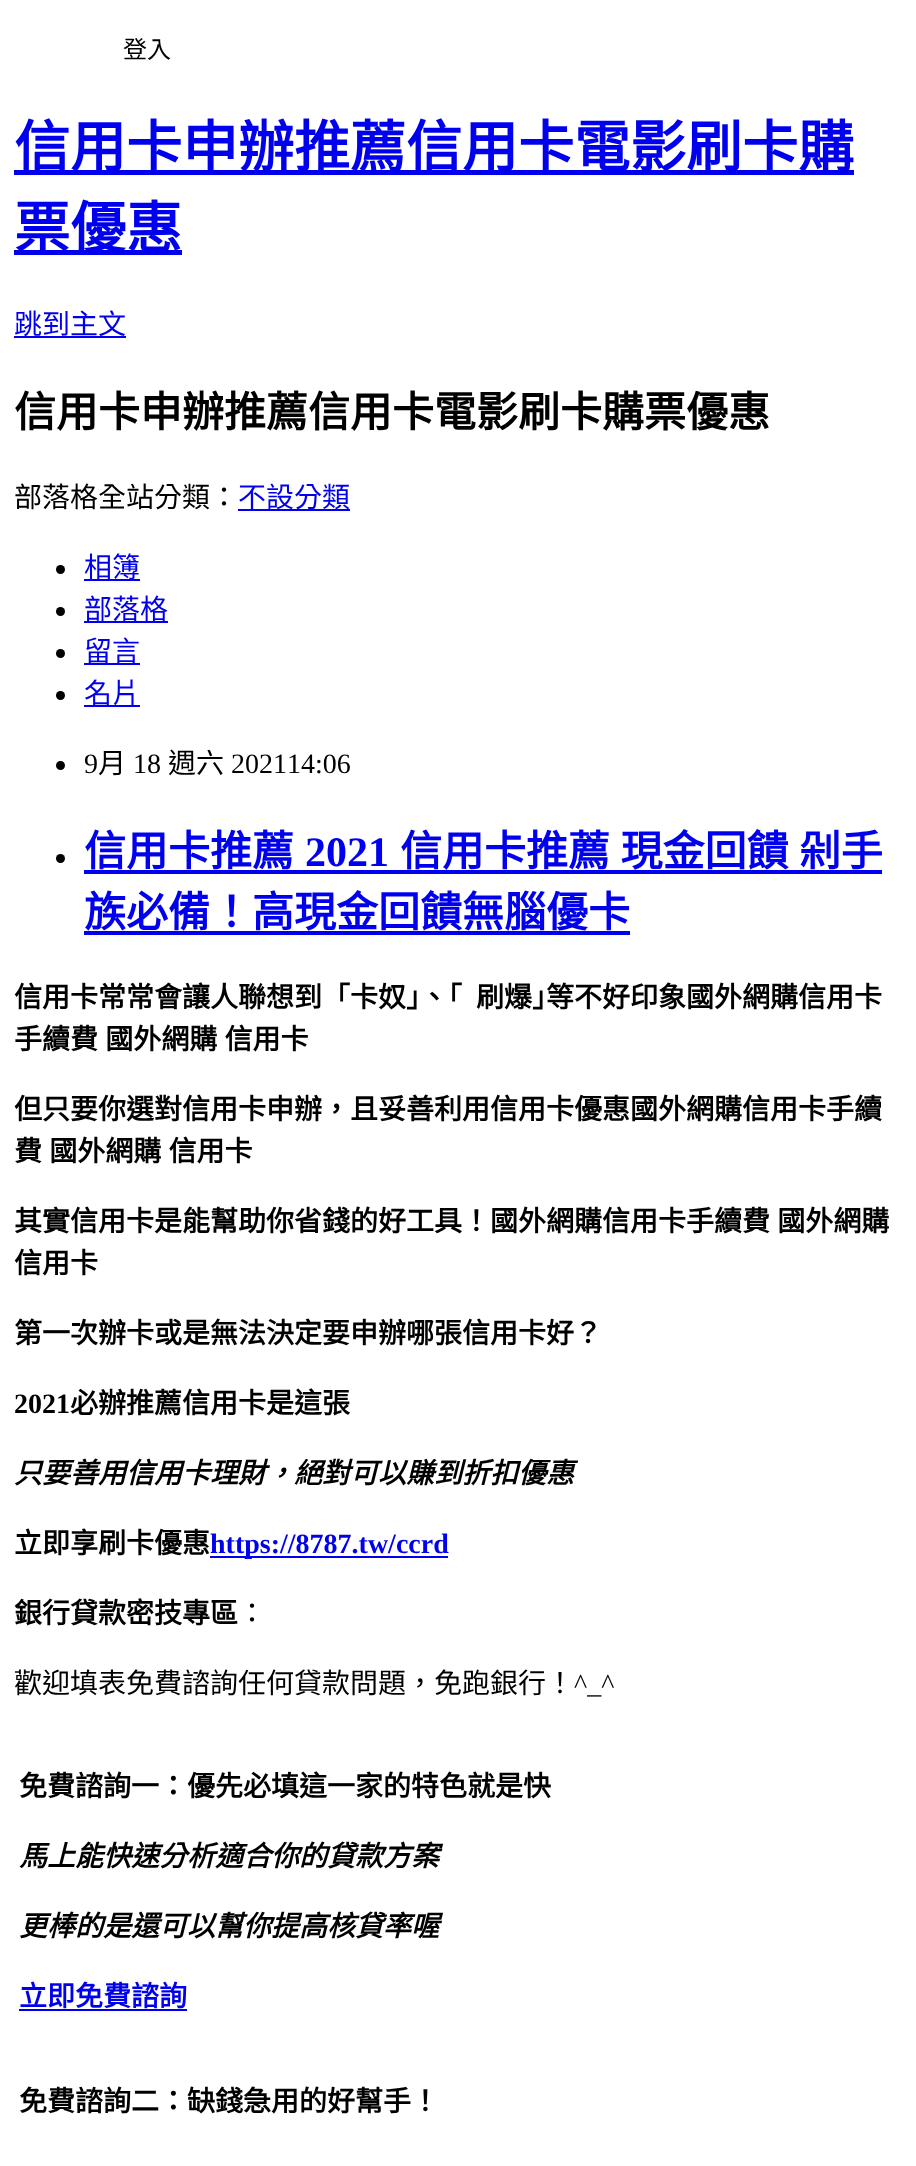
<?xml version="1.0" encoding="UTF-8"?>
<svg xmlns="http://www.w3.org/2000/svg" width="916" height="2166">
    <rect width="100%" height="100%" fill="#FFFFFF"/>
    <text x="123" y="58" font-family="Noto Sans CJK TC" font-size="24" fill="#000000">登入</text>
    <rect x="14" y="170" width="840" height="5" fill="#0000EE"/>
    <text x="14" y="167" font-family="Noto Sans CJK TC" font-size="56" font-weight="700" fill="#0000EE">信用卡申辦推薦信用卡電影刷卡購</text>
    <rect x="14" y="250" width="168" height="5" fill="#0000EE"/>
    <text x="14" y="248" font-family="Noto Sans CJK TC" font-size="56" font-weight="700" fill="#0000EE">票優惠</text>
    <rect x="14" y="336" width="112" height="2" fill="#0000EE"/>
    <text x="14" y="334" font-family="Noto Sans CJK TC" font-size="28" fill="#0000EE">跳到主文</text>
    <text x="14" y="427" font-family="Noto Sans CJK TC" font-size="42" font-weight="700" fill="#000000">信用卡申辦推薦信用卡電影刷卡購票優惠</text>
    <text x="14" y="507" font-family="Noto Sans CJK TC" font-size="28" fill="#000000">部落格全站分類：</text>
    <rect x="238" y="509" width="112" height="2" fill="#0000EE"/>
    <text x="238" y="507" font-family="Noto Sans CJK TC" font-size="28" fill="#0000EE">不設分類</text>
    <circle cx="60.5" cy="569.5" r="4.5" fill="#000000"/>
    <rect x="84" y="579" width="56" height="2" fill="#0000EE"/>
    <text x="84" y="577" font-family="Noto Sans CJK TC" font-size="28" fill="#0000EE">相簿</text>
    <circle cx="60.5" cy="611.5" r="4.5" fill="#000000"/>
    <rect x="84" y="621" width="84" height="2" fill="#0000EE"/>
    <text x="84" y="619" font-family="Noto Sans CJK TC" font-size="28" fill="#0000EE">部落格</text>
    <circle cx="60.5" cy="653.5" r="4.5" fill="#000000"/>
    <rect x="84" y="663" width="56" height="2" fill="#0000EE"/>
    <text x="84" y="661" font-family="Noto Sans CJK TC" font-size="28" fill="#0000EE">留言</text>
    <circle cx="60.5" cy="695.5" r="4.5" fill="#000000"/>
    <rect x="84" y="705" width="56" height="2" fill="#0000EE"/>
    <text x="84" y="703" font-family="Noto Sans CJK TC" font-size="28" fill="#0000EE">名片</text>
    <circle cx="60.5" cy="765.5" r="4.5" fill="#000000"/>
    <text x="84" y="773" font-family="Liberation Serif" font-size="28" fill="#000000">9</text>
    <text x="98" y="773" font-family="Noto Sans CJK TC" font-size="28" fill="#000000">月</text>
    <text x="133" y="773" font-family="Liberation Serif" font-size="28" fill="#000000">18</text>
    <text x="168" y="773" font-family="Noto Sans CJK TC" font-size="28" fill="#000000">週六</text>
    <text x="231" y="773" font-family="Liberation Serif" font-size="28" fill="#000000">2021</text>
    <text x="287" y="773" font-family="Liberation Serif" font-size="28" fill="#000000">14:06</text>
    <circle cx="60.5" cy="858.5" r="4.5" fill="#000000"/>
    <text x="84" y="866" font-family="Noto Sans CJK TC" font-size="42" font-weight="700" fill="#0000EE">信用卡推薦</text>
    <text x="305" y="866" font-family="Liberation Serif" font-size="42" font-weight="700" fill="#0000EE">2021</text>
    <rect x="84" y="870" width="798" height="4" fill="#0000EE"/>
    <text x="400" y="866" word-spacing="1" font-family="Noto Sans CJK TC" font-size="42" font-weight="700" fill="#0000EE">信用卡推薦 現金回饋 剁手</text>
    <text x="84" y="927" font-family="Noto Sans CJK TC" font-size="42" font-weight="700" fill="#0000EE">族必備！高現金回饋無腦優卡</text>
    <rect x="84" y="931" width="546" height="4" fill="#0000EE"/>
    <text x="14" y="1007" font-family="Noto Sans CJK TC" font-size="28" font-weight="700" fill="#000000">信用卡常常會讓人聯想到「卡奴」</text>
    <text x="420" y="1007" font-family="Noto Sans CJK TC" font-size="28" font-weight="700" fill="#000000">、「</text>
    <text x="476" y="1007" font-family="Noto Sans CJK TC" font-size="28" font-weight="700" fill="#000000">刷爆」</text>
    <text x="546" y="1007" font-family="Noto Sans CJK TC" font-size="28" font-weight="700" fill="#000000">等不好印象國外網購信用卡</text>
    <text x="14" y="1049" word-spacing="1" font-family="Noto Sans CJK TC" font-size="28" font-weight="700" fill="#000000">手續費 國外網購 信用卡</text>
    <text font-family="Noto Sans CJK TC" font-size="28" font-weight="700" fill="#000000">
        <tspan x="14" y="1119">但只要你選對信用卡申辦，且妥善利用信用卡優惠國外網購信用卡手續</tspan>
        <tspan x="14" y="1161" word-spacing="1">費 國外網購 信用卡</tspan>
    </text>
    <text x="14" y="1231" font-family="Noto Sans CJK TC" font-size="28" font-weight="700" fill="#000000">其實信用卡是能幫助你省錢的好工具！</text>
    <text x="490" y="1231" word-spacing="1" font-family="Noto Sans CJK TC" font-size="28" font-weight="700" fill="#000000">國外網購信用卡手續費 國外網購</text>
    <text x="14" y="1273" font-family="Noto Sans CJK TC" font-size="28" font-weight="700" fill="#000000">信用卡</text>
    <text x="14" y="1343" font-family="Noto Sans CJK TC" font-size="28" font-weight="700" fill="#000000">第一次辦卡或是無法決定要申辦哪張信用卡好？</text>
    <text x="14" y="1413" font-family="Liberation Serif" font-size="28" font-weight="700" fill="#000000">2021</text>
    <text x="70" y="1413" font-family="Noto Sans CJK TC" font-size="28" font-weight="700" fill="#000000">必辦推薦信用卡是這張</text>
    <text x="14" y="1483" font-family="Noto Sans CJK TC" font-size="28" font-weight="700" font-style="italic" fill="#000000">只要善用信用卡理財，絕對可以賺到折扣優惠</text>
    <text x="14" y="1553" font-family="Noto Sans CJK TC" font-size="28" font-weight="700" fill="#000000">立即享刷卡優惠</text>
    <rect x="210" y="1556" width="238" height="2" fill="#0000EE"/>
    <text x="210" y="1553" font-family="Liberation Serif" font-size="28" font-weight="700" fill="#0000EE">https://8787.tw/ccrd</text>
    <text x="14" y="1623" font-family="Noto Sans CJK TC" font-size="28" font-weight="700" fill="#000000">銀行貸款密技專區</text>
    <text x="238" y="1623" font-family="Noto Sans CJK TC" font-size="28" fill="#000000">：</text>
    <text x="14" y="1693" font-family="Noto Sans CJK TC" font-size="28" fill="#000000">歡迎填表免費諮詢任何貸款問題，免跑銀行！</text>
    <text x="574" y="1693" font-family="Liberation Serif" font-size="28" fill="#000000">^_^</text>
    <text x="19" y="1796" font-family="Noto Sans CJK TC" font-size="28" font-weight="700" fill="#000000">免費諮詢一：優先必填這一家的特色就是快</text>
    <text x="19" y="1866" font-family="Noto Sans CJK TC" font-size="28" font-weight="700" font-style="italic" fill="#000000">馬上能快速分析適合你的貸款方案</text>
    <text x="19" y="1936" font-family="Noto Sans CJK TC" font-size="28" font-weight="700" font-style="italic" fill="#000000">更棒的是還可以幫你提高核貸率喔</text>
    <text x="19" y="2006" font-family="Noto Sans CJK TC" font-size="28" font-weight="700" fill="#0000EE">立即免費諮詢</text>
    <rect x="19" y="2009" width="168" height="2" fill="#0000EE"/>
    <text x="19" y="2111" font-family="Noto Sans CJK TC" font-size="28" font-weight="700" fill="#000000">免費諮詢二：缺錢急用的好幫手！</text>
</svg>
